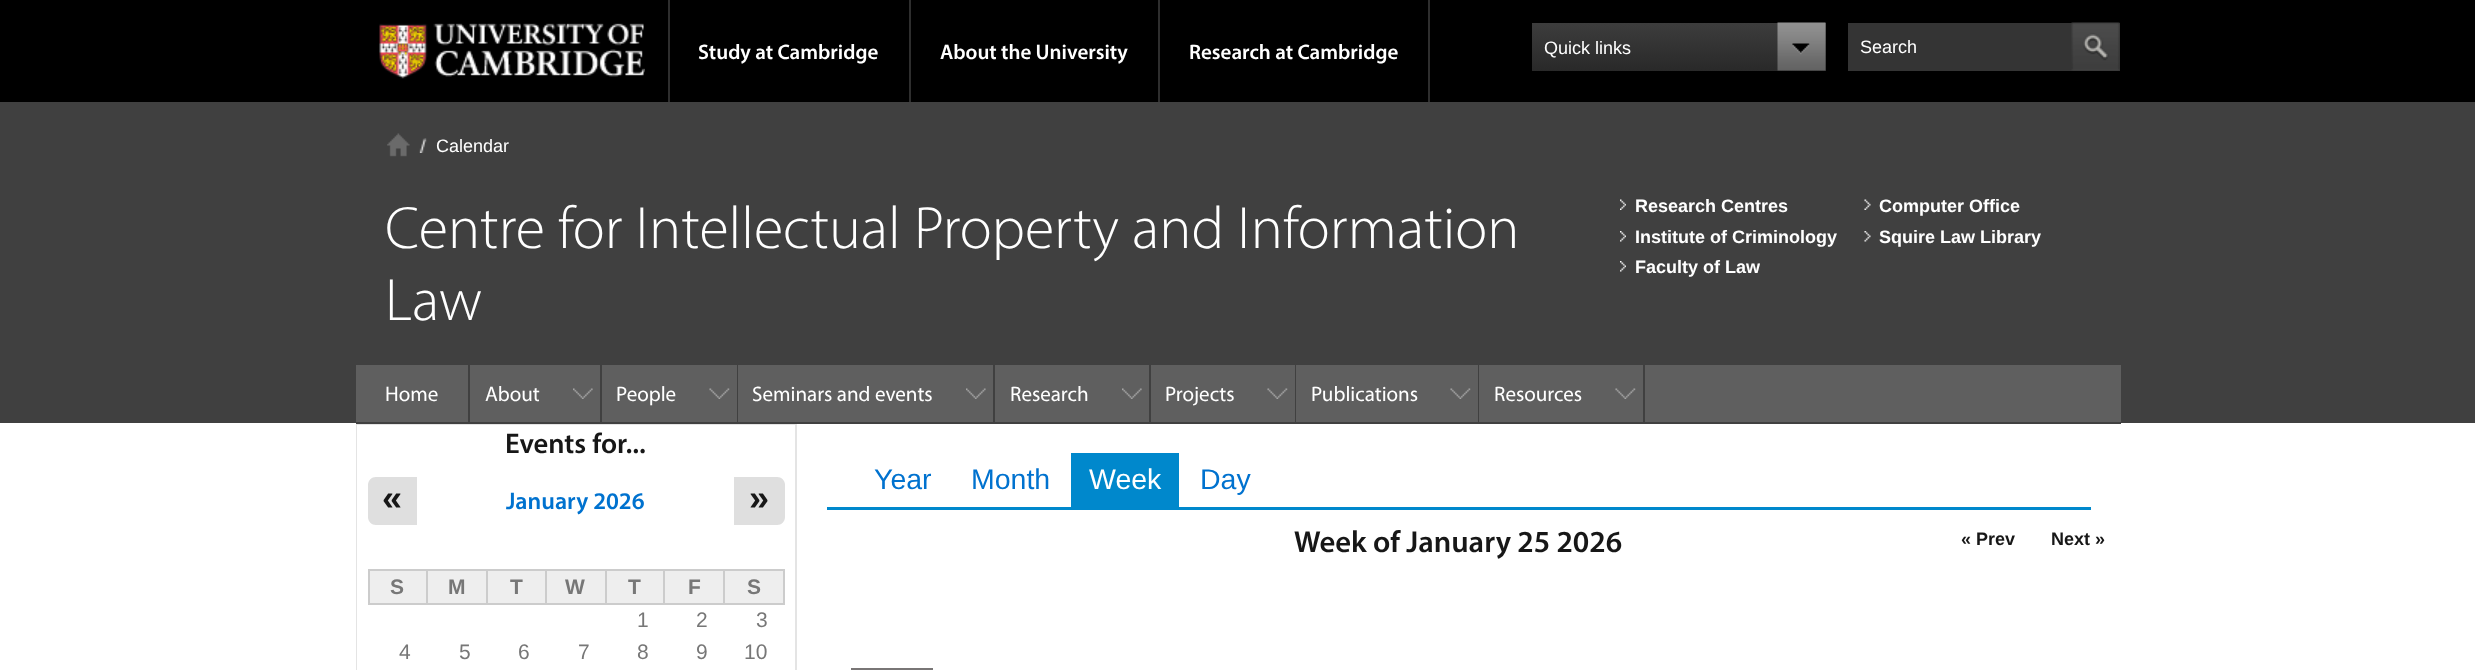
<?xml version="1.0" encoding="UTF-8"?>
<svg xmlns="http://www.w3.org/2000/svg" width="2475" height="670">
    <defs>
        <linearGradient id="g1" gradientUnits="userSpaceOnUse" x1="1679" y1="22" x2="1679" y2="71"><stop offset="0" stop-color="#3D3D3D"/><stop offset="1" stop-color="#292929"/></linearGradient>
    </defs>
    <rect width="100%" height="100%" fill="#000000"/>
    <image x="379" y="23" width="266" height="56" href="img_01.png"/>
    <rect x="668" y="0" width="2" height="102" fill="#2E2E2E"/>
    <rect x="909" y="0" width="2" height="102" fill="#2E2E2E"/>
    <text x="698" y="59" font-family="Myriad" font-size="21" font-weight="600" fill="#FFFFFF">Study at Cambridge</text>
    <rect x="1158" y="0" width="2" height="102" fill="#2E2E2E"/>
    <text x="940" y="59" font-family="Myriad" font-size="21" font-weight="600" fill="#FFFFFF">About the University</text>
    <rect x="1428" y="0" width="2" height="102" fill="#2E2E2E"/>
    <text x="1189" y="59" font-family="Myriad" font-size="21" font-weight="600" fill="#FFFFFF">Research at Cambridge</text>
    <rect x="1532" y="23" width="294" height="48" fill="url(#g1)"/>
    <text x="1544" y="54" font-family="Liberation Sans" font-size="18" fill="#FFFFFF">Quick links</text>
    <image x="1777" y="22" width="49" height="49" href="img_02.png"/>
    <rect x="1848" y="23" width="272" height="48" fill="#343434"/>
    <text x="1860" y="53" font-family="Liberation Sans" font-size="18" fill="#FFFFFF">Search</text>
    <image x="2071" y="22" width="49" height="49" href="img_03.png"/>
    <rect x="0" y="102" width="2475" height="321" fill="#404040"/>
    <image x="387" y="133" width="23" height="24" href="img_04.png"/>
    <image x="419" y="138" width="8" height="15" href="img_05.png"/>
    <text x="436" y="152" font-family="Liberation Sans" font-size="18" fill="#FFFFFF">Calendar</text>
    <text x="385" y="248" font-family="Myriad" font-size="60" font-weight="300" fill="#FFFFFF">Centre for Intellectual Property and Information</text>
    <image x="1620" y="199" width="6" height="11" href="img_06.png"/>
    <text x="1635" y="212" font-family="Liberation Sans" font-size="18" font-weight="700" fill="#FFFFFF">Research Centres</text>
    <image x="1864" y="199" width="7" height="11" href="img_07.png"/>
    <text x="1879" y="212" font-family="Liberation Sans" font-size="18" font-weight="700" fill="#FFFFFF">Computer Office</text>
    <image x="1620" y="231" width="6" height="11" href="img_08.png"/>
    <text x="1635" y="243" font-family="Liberation Sans" font-size="18" font-weight="700" fill="#FFFFFF">Institute of Criminology</text>
    <image x="1864" y="231" width="7" height="11" href="img_09.png"/>
    <text x="1879" y="243" font-family="Liberation Sans" font-size="18" font-weight="700" fill="#FFFFFF">Squire Law Library</text>
    <image x="1620" y="261" width="6" height="11" href="img_08.png"/>
    <text x="1635" y="273" font-family="Liberation Sans" font-size="18" font-weight="700" fill="#FFFFFF">Faculty of Law</text>
    <text x="385" y="320" font-family="Myriad" font-size="60" font-weight="300" fill="#FFFFFF">Law</text>
    <rect x="1645" y="365" width="476" height="57" fill="#5F5F5F"/>
    <rect x="0" y="423" width="2475" height="247" fill="#FFFFFF"/>
    <rect x="1644" y="423" width="477" height="1" fill="#404040"/>
    <rect x="356" y="365" width="112" height="57" fill="#5F5F5F"/>
    <rect x="356" y="424" width="441" height="1" fill="#E4E4E4"/>
    <rect x="795" y="423" width="2" height="247" fill="#E4E4E4"/>
    <rect x="356" y="423" width="2" height="247" fill="#E4E4E4"/>
    <rect x="356" y="423" width="1288" height="1" fill="#404040"/>
    <text x="385" y="401" font-family="Myriad" font-size="21" fill="#FFFFFF">Home</text>
    <rect x="470" y="365" width="130" height="57" fill="#5F5F5F"/>
    <image x="573" y="388" width="20" height="11" href="img_10.png"/>
    <text x="485" y="401" font-family="Myriad" font-size="21" fill="#FFFFFF">About</text>
    <rect x="602" y="365" width="135" height="57" fill="#5F5F5F"/>
    <image x="709" y="388" width="21" height="11" href="img_11.png"/>
    <text x="616" y="401" font-family="Myriad" font-size="21" fill="#FFFFFF">People</text>
    <rect x="738" y="365" width="255" height="57" fill="#5F5F5F"/>
    <image x="966" y="388" width="20" height="11" href="img_12.png"/>
    <text x="752" y="401" font-family="Myriad" font-size="21" fill="#FFFFFF">Seminars and events</text>
    <rect x="995" y="365" width="154" height="57" fill="#5F5F5F"/>
    <image x="1122" y="388" width="20" height="11" href="img_10.png"/>
    <text x="1010" y="401" font-family="Myriad" font-size="21" fill="#FFFFFF">Research</text>
    <rect x="1151" y="365" width="144" height="57" fill="#5F5F5F"/>
    <image x="1267" y="388" width="21" height="11" href="img_13.png"/>
    <text x="1165" y="401" font-family="Myriad" font-size="21" fill="#FFFFFF">Projects</text>
    <rect x="1296" y="365" width="182" height="57" fill="#5F5F5F"/>
    <image x="1450" y="388" width="21" height="11" href="img_11.png"/>
    <text x="1311" y="401" font-family="Myriad" font-size="21" fill="#FFFFFF">Publications</text>
    <rect x="1479" y="365" width="164" height="57" fill="#5F5F5F"/>
    <image x="1615" y="388" width="21" height="11" href="img_13.png"/>
    <text x="1494" y="401" font-family="Myriad" font-size="21" fill="#FFFFFF">Resources</text>
    <rect x="357" y="425" width="1" height="245" fill="#FFFFFF"/>
    <text x="505" y="453" font-family="Myriad" font-size="28.5" font-weight="600" fill="#171717">Events for...</text>
    <text x="506" y="509" font-family="Myriad" font-size="24" font-weight="600" fill="#0072CF">January 2026</text>
    <path d="M 376 477 H 417 V 525 H 376 C 371.5 525 368 521.5 368 517 V 485 C 368 480.5 371.5 477 376 477 Z" fill="#DFDFDF"/>
    <text x="382" y="510" font-family="Liberation Sans" font-size="36" font-weight="700" fill="#171717">«</text>
    <path d="M 734 477 H 777 C 781.5 477 785 480.5 785 485 V 517 C 785 521.5 781.5 525 777 525 H 734 Z" fill="#DFDFDF"/>
    <text x="749" y="510" font-family="Liberation Sans" font-size="36" font-weight="700" fill="#171717">»</text>
    <rect x="370" y="571" width="56" height="32" fill="#EEEEEE"/>
    <rect x="723" y="569" width="62" height="2" fill="#CCCCCC"/>
    <rect x="783" y="569" width="2" height="36" fill="#CCCCCC"/>
    <rect x="723" y="603" width="62" height="2" fill="#CCCCCC"/>
    <rect x="723" y="569" width="2" height="36" fill="#CCCCCC"/>
    <rect x="663" y="569" width="62" height="2" fill="#CCCCCC"/>
    <rect x="663" y="603" width="62" height="2" fill="#CCCCCC"/>
    <rect x="663" y="569" width="2" height="36" fill="#CCCCCC"/>
    <rect x="605" y="569" width="60" height="2" fill="#CCCCCC"/>
    <rect x="605" y="603" width="60" height="2" fill="#CCCCCC"/>
    <rect x="605" y="569" width="2" height="36" fill="#CCCCCC"/>
    <rect x="545" y="569" width="61" height="2" fill="#CCCCCC"/>
    <rect x="545" y="603" width="61" height="2" fill="#CCCCCC"/>
    <rect x="545" y="569" width="2" height="36" fill="#CCCCCC"/>
    <rect x="486" y="569" width="60" height="2" fill="#CCCCCC"/>
    <rect x="486" y="603" width="60" height="2" fill="#CCCCCC"/>
    <rect x="486" y="569" width="2" height="36" fill="#CCCCCC"/>
    <rect x="426" y="569" width="62" height="2" fill="#CCCCCC"/>
    <rect x="426" y="603" width="62" height="2" fill="#CCCCCC"/>
    <rect x="426" y="569" width="2" height="36" fill="#CCCCCC"/>
    <rect x="368" y="569" width="60" height="2" fill="#CCCCCC"/>
    <rect x="368" y="603" width="60" height="2" fill="#CCCCCC"/>
    <rect x="368" y="569" width="2" height="36" fill="#CCCCCC"/>
    <text x="390" y="594" font-family="Liberation Sans" font-size="21" font-weight="700" fill="#777777">S</text>
    <rect x="428" y="571" width="58" height="32" fill="#EEEEEE"/>
    <text x="448" y="594" font-family="Liberation Sans" font-size="21" font-weight="700" fill="#777777">M</text>
    <rect x="488" y="571" width="57" height="32" fill="#EEEEEE"/>
    <text x="510" y="594" font-family="Liberation Sans" font-size="21" font-weight="700" fill="#777777">T</text>
    <rect x="547" y="571" width="58" height="32" fill="#EEEEEE"/>
    <text x="565" y="594" font-family="Liberation Sans" font-size="21" font-weight="700" fill="#777777">W</text>
    <rect x="607" y="571" width="56" height="32" fill="#EEEEEE"/>
    <text x="628" y="594" font-family="Liberation Sans" font-size="21" font-weight="700" fill="#777777">T</text>
    <rect x="665" y="571" width="58" height="32" fill="#EEEEEE"/>
    <text x="688" y="594" font-family="Liberation Sans" font-size="21" font-weight="700" fill="#777777">F</text>
    <rect x="725" y="571" width="58" height="32" fill="#EEEEEE"/>
    <text x="747" y="594" font-family="Liberation Sans" font-size="21" font-weight="700" fill="#777777">S</text>
    <text x="637" y="627" font-family="Liberation Sans" font-size="21" fill="#777777">1</text>
    <text x="696" y="627" font-family="Liberation Sans" font-size="21" fill="#777777">2</text>
    <text x="756" y="627" font-family="Liberation Sans" font-size="21" fill="#777777">3</text>
    <text x="399" y="659" font-family="Liberation Sans" font-size="21" fill="#777777">4</text>
    <text x="459" y="659" font-family="Liberation Sans" font-size="21" fill="#777777">5</text>
    <text x="518" y="659" font-family="Liberation Sans" font-size="21" fill="#777777">6</text>
    <text x="578" y="659" font-family="Liberation Sans" font-size="21" fill="#777777">7</text>
    <text x="637" y="659" font-family="Liberation Sans" font-size="21" fill="#777777">8</text>
    <text x="696" y="659" font-family="Liberation Sans" font-size="21" fill="#777777">9</text>
    <text x="744" y="659" font-family="Liberation Sans" font-size="21" fill="#777777">10</text>
    <rect x="827" y="507" width="1264" height="3" fill="#0088CC"/>
    <text x="874" y="489" font-family="Liberation Sans" font-size="28.5" fill="#0072CF">Year</text>
    <text x="971" y="489" font-family="Liberation Sans" font-size="28.5" fill="#0072CF">Month</text>
    <rect x="1071" y="453" width="108" height="54" fill="#0088CC"/>
    <text x="1089" y="489" font-family="Liberation Sans" font-size="28.5" fill="#FFFFFF">Week</text>
    <text x="1200" y="489" font-family="Liberation Sans" font-size="28.5" fill="#0072CF">Day</text>
    <text x="1294" y="552" font-family="Myriad" font-size="30.6" font-weight="600" fill="#171717">Week of January 25 2026</text>
    <text x="1961" y="545" font-family="Liberation Sans" font-size="18" font-weight="700" fill="#171717">« Prev</text>
    <text x="2051" y="545" font-family="Liberation Sans" font-size="18" font-weight="700" fill="#171717">Next »</text>
    <rect x="851" y="668" width="82" height="2" fill="#797676"/>
</svg>
